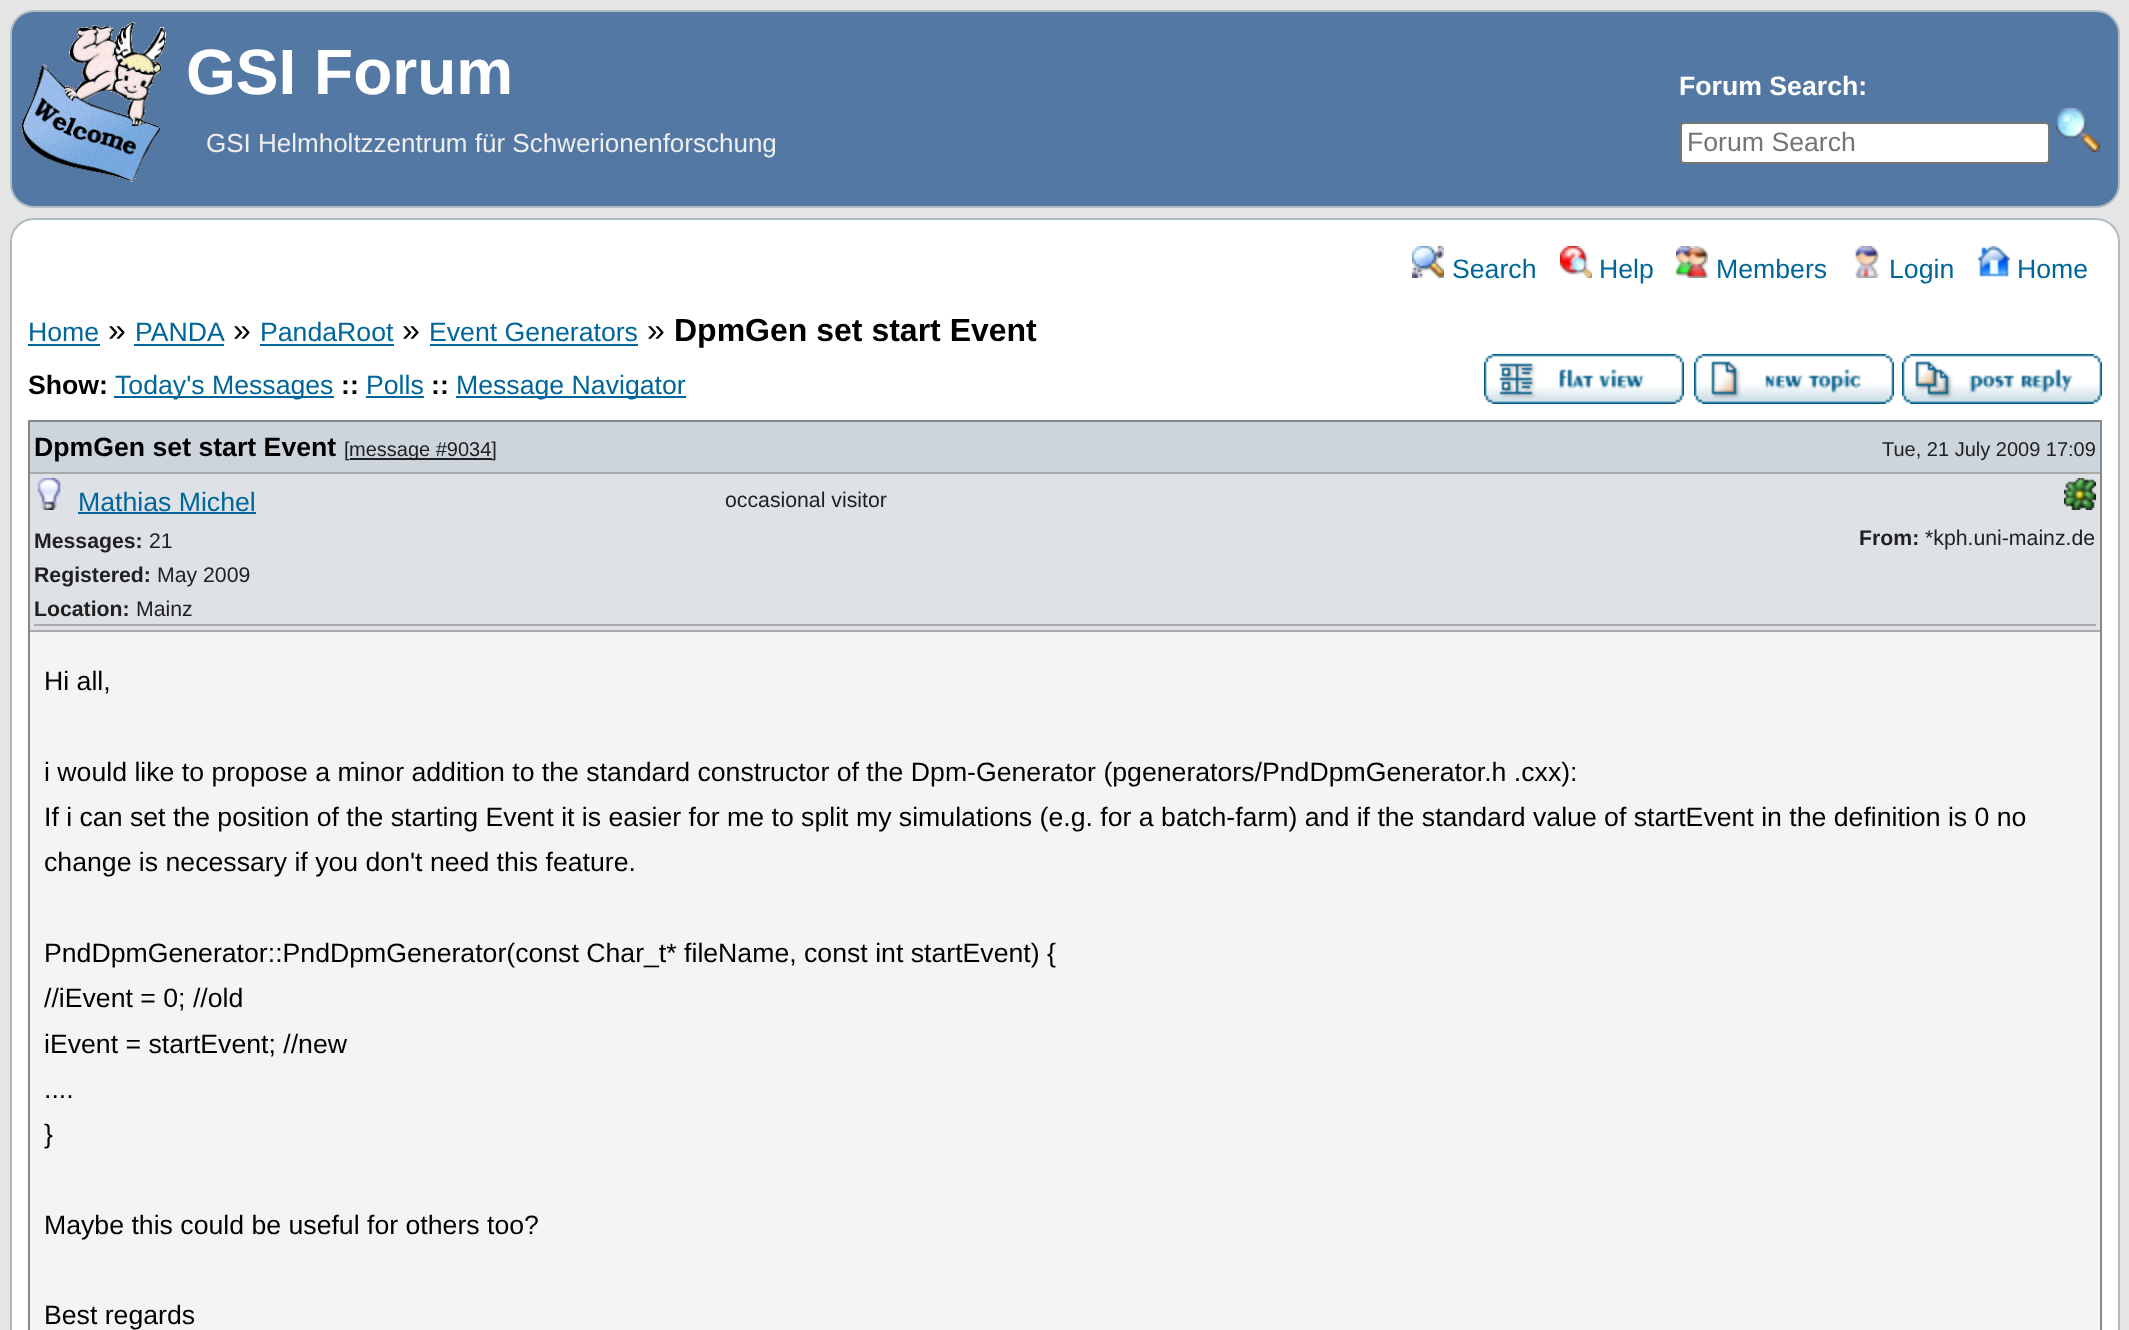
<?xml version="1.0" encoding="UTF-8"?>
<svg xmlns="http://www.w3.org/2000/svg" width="2129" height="1330">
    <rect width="100%" height="100%" fill="#E5E5E5"/>
    <rect x="11" y="11" width="2108" height="196" rx="23" fill="#5478A4" stroke="#AEBDC4" stroke-width="2"/>
    <image x="22" y="22" width="144" height="160" href="img_01.png"/>
    <text x="186" y="94" font-family="Liberation Sans" font-size="64" font-weight="700" fill="#FFFFFF">GSI Forum</text>
    <text x="1679" y="95" font-family="Liberation Sans" font-size="26.67" font-weight="700" fill="#FFFFFF">Forum Search:</text>
    <rect x="1681" y="123" width="368" height="40" rx="3" fill="#FFFFFF" stroke="#767676" stroke-width="2"/>
    <text x="1687" y="151" font-family="Liberation Sans" font-size="26.67" fill="#757575">Forum Search</text>
    <image x="2056" y="108" width="44" height="44" href="img_02.png"/>
    <text x="206" y="152" font-family="Liberation Sans" font-size="26" fill="#EEEEEE">GSI Helmholtzzentrum für Schwerionenforschung</text>
    <rect x="11" y="219" width="2108" height="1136" rx="23" fill="#FFFFFF" stroke="#AEBDC4" stroke-width="2"/>
    <image x="1412" y="246" width="32" height="32" href="img_03.png"/>
    <text x="1452" y="278" font-family="Liberation Sans" font-size="26.67" fill="#006699">Search</text>
    <image x="1560" y="246" width="32" height="32" href="img_04.png"/>
    <text x="1599" y="278" font-family="Liberation Sans" font-size="26.67" fill="#006699">Help</text>
    <image x="1676" y="246" width="32" height="32" href="img_05.png"/>
    <text x="1716" y="278" font-family="Liberation Sans" font-size="26.67" fill="#006699">Members</text>
    <image x="1855" y="246" width="24" height="32" href="img_06.png"/>
    <text x="1889" y="278" font-family="Liberation Sans" font-size="26.67" fill="#006699">Login</text>
    <image x="1978" y="246" width="32" height="31" href="img_07.png"/>
    <text x="2017" y="278" font-family="Liberation Sans" font-size="26.67" fill="#006699">Home</text>
    <text x="28" y="341" font-family="Liberation Sans" font-size="26.67" fill="#006699">Home</text>
    <rect x="28" y="344" width="72" height="2" fill="#006699"/>
    <text x="108" y="341" font-family="Liberation Sans" font-size="32" fill="#000000">»</text>
    <text x="135" y="341" font-family="Liberation Sans" font-size="26.67" fill="#006699">PANDA</text>
    <rect x="134" y="344" width="90" height="2" fill="#006699"/>
    <text x="233" y="341" font-family="Liberation Sans" font-size="32" fill="#000000">»</text>
    <text x="260" y="341" font-family="Liberation Sans" font-size="26.67" fill="#006699">PandaRoot</text>
    <rect x="260" y="344" width="134" height="2" fill="#006699"/>
    <text x="402" y="341" font-family="Liberation Sans" font-size="32" fill="#000000">»</text>
    <text x="429" y="341" font-family="Liberation Sans" font-size="26.67" fill="#006699">Event Generators</text>
    <rect x="430" y="344" width="208" height="2" fill="#006699"/>
    <text x="647" y="341" font-family="Liberation Sans" font-size="32" fill="#000000">»</text>
    <text x="674" y="341" font-family="Liberation Sans" font-size="32" font-weight="700" fill="#000000">DpmGen set start Event</text>
    <text x="28" y="394" font-family="Liberation Sans" font-size="26.67" font-weight="700" fill="#000000">Show:</text>
    <rect x="114" y="396" width="220" height="2" fill="#006699"/>
    <text x="115" y="394" font-family="Liberation Sans" font-size="26.67" fill="#006699">Today's Messages</text>
    <text x="341" y="394" font-family="Liberation Sans" font-size="26.67" font-weight="700" fill="#000000">::</text>
    <text x="366" y="394" font-family="Liberation Sans" font-size="26.67" fill="#006699">Polls</text>
    <rect x="366" y="396" width="58" height="2" fill="#006699"/>
    <text x="431" y="394" font-family="Liberation Sans" font-size="26.67" font-weight="700" fill="#000000">::</text>
    <rect x="456" y="396" width="230" height="2" fill="#006699"/>
    <text x="456" y="394" font-family="Liberation Sans" font-size="26.67" fill="#006699">Message Navigator</text>
    <image x="1484" y="354" width="200" height="50" href="img_08.png"/>
    <image x="1694" y="354" width="200" height="50" href="img_09.png"/>
    <image x="1902" y="354" width="200" height="50" href="img_10.png"/>
    <rect x="29" y="421" width="2072" height="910" fill="none" stroke="#888888" stroke-width="2"/>
    <rect x="30" y="422" width="2070" height="50" fill="#CCD4DC"/>
    <rect x="30" y="472" width="2070" height="2" fill="#AAAAAA"/>
    <text x="34" y="456" font-family="Liberation Sans" font-size="26.67" font-weight="700" fill="#000000">DpmGen set start Event</text>
    <text x="344" y="456" font-family="Liberation Sans" font-size="20" fill="#202020">[</text>
    <rect x="350" y="458" width="142" height="2" fill="#202020"/>
    <text x="349" y="456" font-family="Liberation Sans" font-size="20" fill="#202020">message #9034]</text>
    <text x="1882" y="456" font-family="Liberation Sans" font-size="20" fill="#202020">Tue, 21 July 2009 17:09</text>
    <rect x="30" y="474" width="2070" height="156" fill="#DEE2E6"/>
    <rect x="30" y="630" width="2070" height="2" fill="#AAAAAA"/>
    <rect x="34" y="624" width="2062" height="2" fill="#AAAAAA"/>
    <image x="37" y="478" width="24" height="32" href="img_11.png"/>
    <text x="78" y="511" font-family="Liberation Sans" font-size="26.67" fill="#006699">Mathias Michel</text>
    <rect x="78" y="512" width="178" height="2" fill="#006699"/>
    <text x="34" y="548" font-family="Liberation Sans" font-size="21.25" font-weight="700" fill="#202020">Messages:</text>
    <text x="149" y="548" font-family="Liberation Sans" font-size="21.25" fill="#202020">21</text>
    <text x="34" y="582" font-family="Liberation Sans" font-size="21.25" font-weight="700" fill="#202020">Registered:</text>
    <text x="157" y="582" font-family="Liberation Sans" font-size="21.25" fill="#202020">May 2009</text>
    <text x="34" y="616" font-family="Liberation Sans" font-size="21.25" font-weight="700" fill="#202020">Location:</text>
    <text x="136" y="616" font-family="Liberation Sans" font-size="21.25" fill="#202020">Mainz</text>
    <text x="725" y="507" font-family="Liberation Sans" font-size="21.25" fill="#202020">occasional visitor</text>
    <image x="2064" y="478" width="32" height="32" href="img_12.png"/>
    <text x="1859" y="545" font-family="Liberation Sans" font-size="21.25" font-weight="700" fill="#202020">From:</text>
    <text x="1925" y="545" font-family="Liberation Sans" font-size="21.25" fill="#202020">*kph.uni-mainz.de</text>
    <rect x="30" y="632" width="2070" height="698" fill="#F4F4F4"/>
    <text x="44" y="690" font-family="Liberation Sans" font-size="26.67" fill="#000000">Hi all,</text>
    <text font-family="Liberation Sans" font-size="26.67" fill="#000000">
        <tspan x="44" y="781">i would like to propose a minor addition to the standard constructor of the Dpm-Generator (pgenerators/PndDpmGenerator.h .cxx):</tspan>
        <tspan x="44" y="826">If i can set the position of the starting Event it is easier for me to split my simulations (e.g. for a batch-farm) and if the standard value of startEvent in the definition is 0 no</tspan>
        <tspan x="44" y="871">change is necessary if you don't need this feature.</tspan>
    </text>
    <text font-family="Liberation Sans" font-size="26.67" fill="#000000">
        <tspan x="44" y="962">PndDpmGenerator::PndDpmGenerator(const Char_t* fileName, const int startEvent) {</tspan>
        <tspan x="44" y="1007">//iEvent = 0; //old</tspan>
        <tspan x="44" y="1053">iEvent = startEvent; //new</tspan>
        <tspan x="44" y="1098">....</tspan>
        <tspan x="44" y="1143">}</tspan>
    </text>
    <text x="44" y="1234" font-family="Liberation Sans" font-size="26.67" fill="#000000">Maybe this could be useful for others too?</text>
    <text x="44" y="1324" font-family="Liberation Sans" font-size="26.67" fill="#000000">Best regards</text>
</svg>
